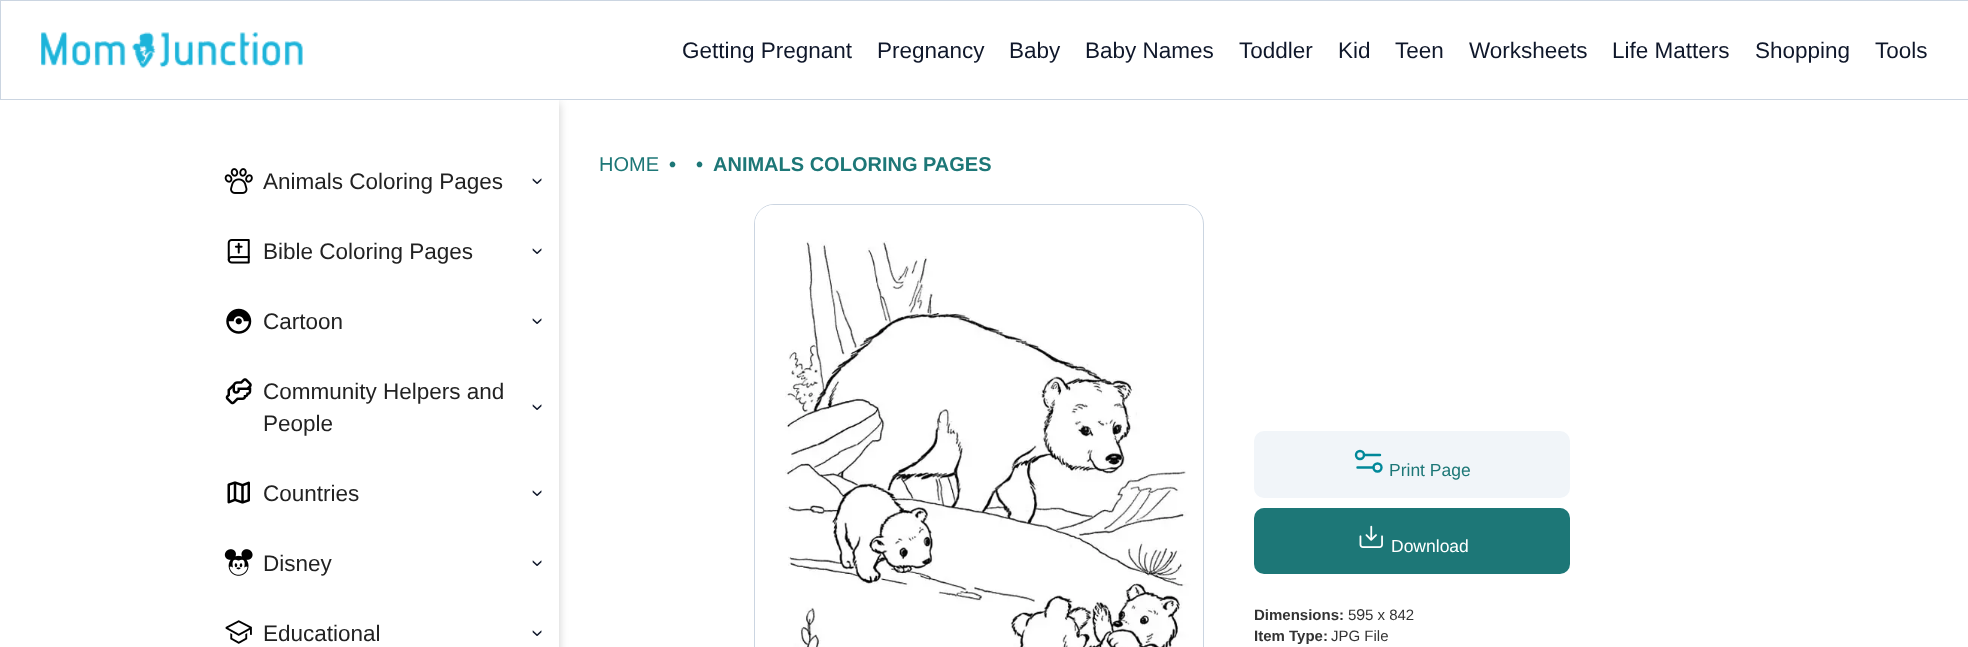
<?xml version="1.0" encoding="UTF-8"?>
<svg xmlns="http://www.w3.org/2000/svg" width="1968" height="647">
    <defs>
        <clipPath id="clip1"><rect x="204" y="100" width="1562" height="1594"/></clipPath>
        <filter id="blur1" x="-50%" y="-200%" width="200%" height="500%"><feGaussianBlur stdDeviation="5"/></filter>
    </defs>
    <rect width="100%" height="100%" fill="#FFFFFF"/>
    <rect x="0.5" y="0.5" width="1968" height="99" fill="none" stroke="#CBD5E1"/>
    <image x="41" y="32" width="262" height="36" href="img_01.png"/>
    <text x="682" y="58" font-family="Liberation Sans" font-size="22.5" fill="#0F172A">Getting Pregnant</text>
    <text x="877" y="58" font-family="Liberation Sans" font-size="22.5" fill="#0F172A">Pregnancy</text>
    <text x="1009" y="58" font-family="Liberation Sans" font-size="22.5" fill="#0F172A">Baby</text>
    <text x="1085" y="58" font-family="Liberation Sans" font-size="22.5" fill="#0F172A">Baby Names</text>
    <text x="1239" y="58" font-family="Liberation Sans" font-size="22.5" fill="#0F172A">Toddler</text>
    <text x="1338" y="58" font-family="Liberation Sans" font-size="22.5" fill="#0F172A">Kid</text>
    <text x="1395" y="58" font-family="Liberation Sans" font-size="22.5" fill="#0F172A">Teen</text>
    <text x="1469" y="58" font-family="Liberation Sans" font-size="22.5" fill="#0F172A">Worksheets</text>
    <text x="1612" y="58" font-family="Liberation Sans" font-size="22.5" fill="#0F172A">Life Matters</text>
    <text x="1755" y="58" font-family="Liberation Sans" font-size="22.5" fill="#0F172A">Shopping</text>
    <text x="1875" y="58" font-family="Liberation Sans" font-size="22.5" fill="#0F172A">Tools</text>
    <g clip-path="url(#clip1)">
        <rect x="204" y="103" width="355" height="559" fill="#000000" fill-opacity="0.2" filter="url(#blur1)"/>
    </g>
    <rect x="204" y="100" width="355" height="547" fill="#FFFFFF"/>
    <image x="224" y="168" width="29" height="26" href="img_02.png"/>
    <text x="263" y="189" font-family="Liberation Sans" font-size="22.5" fill="#222222">Animals Coloring Pages</text>
    <text x="543" y="185" transform="rotate(-90 543 185)" font-family="Liberation Sans" font-size="22.5" fill="#0F172A">‹</text>
    <image x="227" y="239" width="23" height="25" href="img_03.png"/>
    <text x="263" y="259" font-family="Liberation Sans" font-size="22.5" fill="#222222">Bible Coloring Pages</text>
    <text x="543" y="255" transform="rotate(-90 543 255)" font-family="Liberation Sans" font-size="22.5" fill="#0F172A">‹</text>
    <image x="226" y="308" width="26" height="26" href="img_04.png"/>
    <text x="263" y="329" font-family="Liberation Sans" font-size="22.5" fill="#222222">Cartoon</text>
    <text x="543" y="325" transform="rotate(-90 543 325)" font-family="Liberation Sans" font-size="22.5" fill="#0F172A">‹</text>
    <image x="225" y="378" width="27" height="27" href="img_05.png"/>
    <text font-family="Liberation Sans" font-size="22.5" fill="#222222">
        <tspan x="263" y="399">Community Helpers and</tspan>
        <tspan x="263" y="431">People</tspan>
    </text>
    <text x="543" y="411" transform="rotate(-90 543 411)" font-family="Liberation Sans" font-size="22.5" fill="#0F172A">‹</text>
    <image x="227" y="481" width="23" height="23" href="img_06.png"/>
    <text x="263" y="501" font-family="Liberation Sans" font-size="22.5" fill="#222222">Countries</text>
    <text x="543" y="497" transform="rotate(-90 543 497)" font-family="Liberation Sans" font-size="22.5" fill="#0F172A">‹</text>
    <image x="224" y="549" width="29" height="27" href="img_07.png"/>
    <text x="263" y="571" font-family="Liberation Sans" font-size="22.5" fill="#222222">Disney</text>
    <text x="543" y="567" transform="rotate(-90 543 567)" font-family="Liberation Sans" font-size="22.5" fill="#0F172A">‹</text>
    <image x="225" y="620" width="27" height="24" href="img_08.png"/>
    <text x="263" y="641" font-family="Liberation Sans" font-size="22.5" fill="#222222">Educational</text>
    <text x="543" y="637" transform="rotate(-90 543 637)" font-family="Liberation Sans" font-size="22.5" fill="#0F172A">‹</text>
    <text x="599" y="171" font-family="Liberation Sans" font-size="20" fill="#1D7777">HOME</text>
    <text x="669" y="171" font-family="Liberation Sans" font-size="20" font-weight="700" fill="#1D7777">•</text>
    <text x="696" y="171" font-family="Liberation Sans" font-size="20" font-weight="700" fill="#1D7777">•</text>
    <text x="713" y="171" font-family="Liberation Sans" font-size="20" font-weight="700" fill="#1D7777">ANIMALS COLORING PAGES</text>
    <rect x="754.5" y="204.5" width="449" height="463" rx="19.5" fill="none" stroke="#CBD5E1"/>
    <image x="755" y="205" width="443" height="442" href="img_09.png"/>
    <rect x="1254" y="431" width="316" height="67" rx="10" fill="#F1F5F9"/>
    <path d="M 1380 455 H 1364 M 1373.5 467.5 H 1357.5" fill="none" stroke="#008899" stroke-width="2.4" stroke-linecap="round" stroke-linejoin="round"/>
    <circle cx="1360" cy="455" r="4" fill="none" stroke="#008899" stroke-width="2.4"/>
    <circle cx="1377.5" cy="467.5" r="4" fill="none" stroke="#008899" stroke-width="2.4"/>
    <text x="1389" y="476" font-family="Liberation Sans" font-size="17.5" fill="#1D7777">Print Page</text>
    <rect x="1254" y="508" width="316" height="66" rx="10" fill="#1D7777"/>
    <image x="1359" y="525" width="24" height="23" href="img_10.png"/>
    <text x="1391" y="552" font-family="Liberation Sans" font-size="17.5" fill="#FFFFFF">Download</text>
    <text x="1254" y="620" font-family="Liberation Sans" font-size="15" font-weight="700" fill="#333333">Dimensions:</text>
    <text x="1348" y="620" font-family="Liberation Sans" font-size="15" fill="#333333">5</text>
    <text x="1356" y="620" font-family="Inter" font-size="15" fill="#333333">9</text>
    <text x="1365" y="620" font-family="Liberation Sans" font-size="15" fill="#333333">5 x 842</text>
    <text x="1254" y="641" font-family="Liberation Sans" font-size="15" font-weight="700" fill="#333333">Item Type:</text>
    <text x="1331" y="641" font-family="Liberation Sans" font-size="15" fill="#333333">JPG File</text>
</svg>
